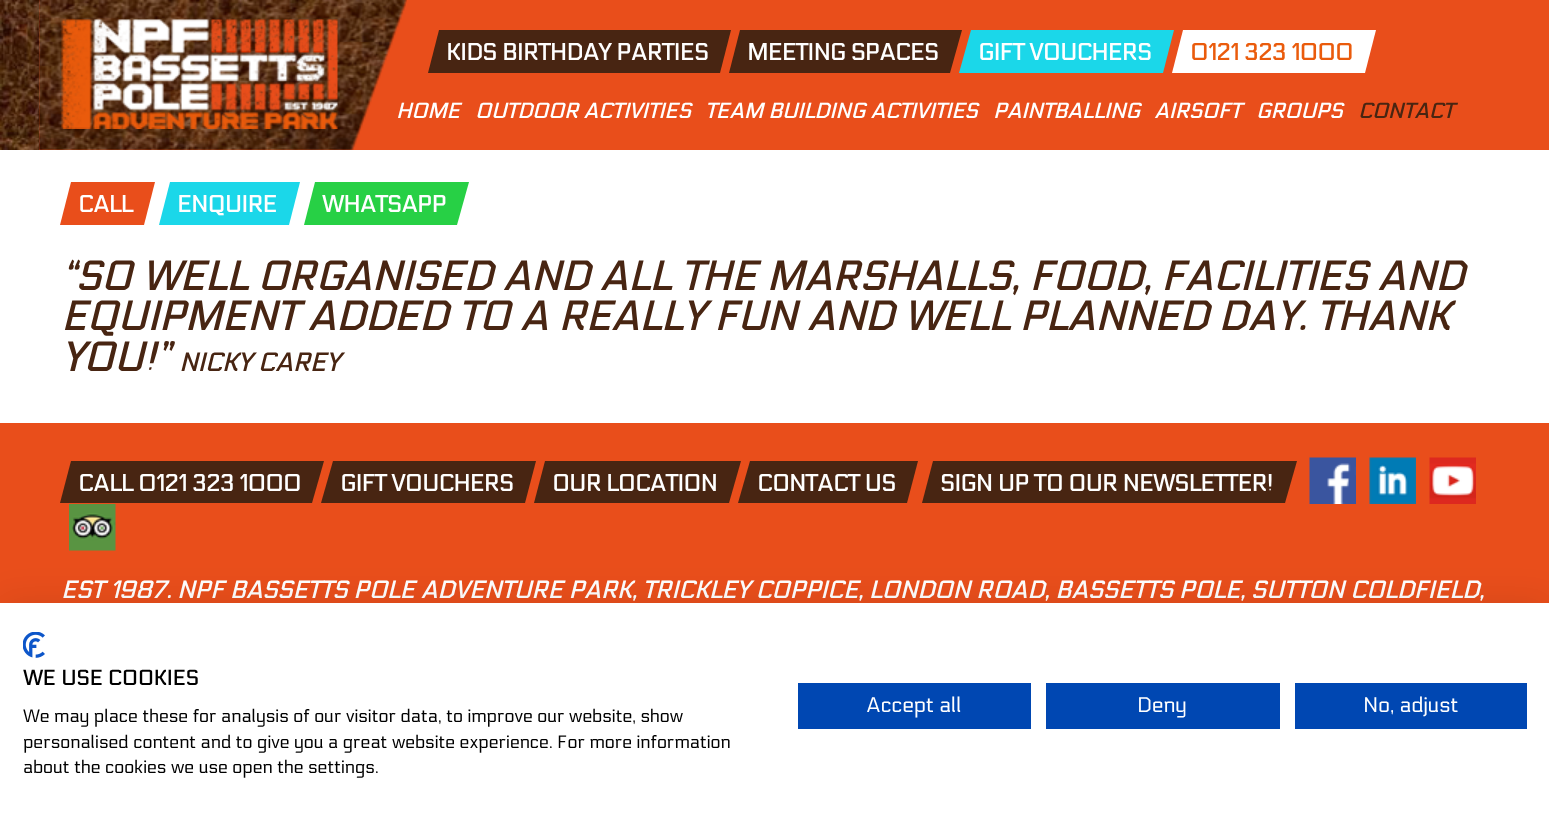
<?xml version="1.0" encoding="UTF-8"?>
<svg xmlns="http://www.w3.org/2000/svg" width="1549" height="820">
    <defs>
        <filter id="blur1" x="-50%" y="-200%" width="200%" height="500%"><feGaussianBlur stdDeviation="18"/></filter>
    </defs>
    <rect width="100%" height="100%" fill="#FFFFFF"/>
    <rect x="39" y="0" width="1510" height="150" fill="#E94E1B"/>
    <image x="0" y="0" width="39" height="150" href="img_01.png"/>
    <image x="38" y="0" width="369" height="150" href="img_02.png"/>
    <image x="61" y="19" width="277" height="110" href="img_03.png"/>
    <path d="M 439 30 H 731 L 720 73 H 428 Z" fill="#482512"/>
    <text x="446" y="60" font-family="Electrolize" font-size="23.25" font-weight="700" letter-spacing="-0.4" fill="#FFFFFF">KIDS BIRTHDAY PARTIES</text>
    <path d="M 740 30 H 962 L 950 73 H 729 Z" fill="#482512"/>
    <text x="747" y="60" font-family="Electrolize" font-size="23.25" font-weight="700" letter-spacing="-0.5" fill="#FFFFFF">MEETING SPACES</text>
    <path d="M 971 30 H 1174 L 1163 73 H 959 Z" fill="#1BD7E9"/>
    <text x="978" y="60" font-family="Electrolize" font-size="23.25" font-weight="700" letter-spacing="-0.5" fill="#FFFFFF">GIFT VOUCHERS</text>
    <path d="M 1183 30 H 1376 L 1365 73 H 1172 Z" fill="#FFFFFF"/>
    <text x="1190" y="60" font-family="Electrolize" font-size="23.25" font-weight="700" letter-spacing="-0.4" fill="#EA5B0C">0121 323 1000</text>
    <text x="396" y="118" font-family="Electrolize" font-size="21" font-weight="700" font-style="italic" fill="#FFFFFF">HOME</text>
    <text x="475" y="118" font-family="Electrolize" font-size="21" font-weight="700" font-style="italic" fill="#FFFFFF">OUTDOOR ACTIVITIES</text>
    <text x="705" y="118" font-family="Electrolize" font-size="21" font-weight="700" font-style="italic" fill="#FFFFFF">TEAM BUILDING ACTIVITIES</text>
    <text x="993" y="118" font-family="Electrolize" font-size="21" font-weight="700" font-style="italic" fill="#FFFFFF">PAINTBALLING</text>
    <text x="1154" y="118" font-family="Electrolize" font-size="21" font-weight="700" font-style="italic" fill="#FFFFFF">AIRSOFT</text>
    <text x="1256" y="118" font-family="Electrolize" font-size="21" font-weight="700" font-style="italic" fill="#FFFFFF">GROUPS</text>
    <text x="1358" y="118" font-family="Electrolize" font-size="21" font-weight="700" font-style="italic" fill="#482512">CONTACT</text>
    <path d="M 71 182 H 155 L 144 225 H 60 Z" fill="#E94E1B"/>
    <text x="78" y="212" font-family="Electrolize" font-size="23.25" font-weight="700" letter-spacing="-0.5" fill="#FFFFFF">CALL</text>
    <path d="M 170 182 H 300 L 289 225 H 159 Z" fill="#1BD7E9"/>
    <text x="177" y="212" font-family="Electrolize" font-size="23.25" font-weight="700" letter-spacing="-0.5" fill="#FFFFFF">ENQUIRE</text>
    <path d="M 315 182 H 469 L 457 225 H 304 Z" fill="#27D045"/>
    <text x="322" y="212" font-family="Electrolize" font-size="23.25" font-weight="700" letter-spacing="-0.5" fill="#FFFFFF">WHATSAPP</text>
    <text font-family="Electrolize" font-size="40.5" font-weight="700" font-style="italic" fill="#482512">
        <tspan x="61" y="290">“SO WELL ORGANISED AND ALL THE MARSHALLS, FOOD, FACILITIES AND</tspan>
        <tspan x="61" y="330">EQUIPMENT ADDED TO A REALLY FUN AND WELL PLANNED DAY. THANK</tspan>
        <tspan x="61" y="371">YOU!”</tspan>
    </text>
    <text x="179" y="371" font-family="Electrolize" font-size="25.5" font-weight="700" font-style="italic" fill="#482512">NICKY CAREY</text>
    <rect x="0" y="423" width="1549" height="180" fill="#E94E1B"/>
    <path d="M 71 461 H 324 L 312 503 H 60 Z" fill="#482512"/>
    <text x="78" y="491" font-family="Electrolize" font-size="23.25" font-weight="700" letter-spacing="-0.4" fill="#FFFFFF">CALL 0121 323 1000</text>
    <path d="M 333 461 H 536 L 525 503 H 321 Z" fill="#482512"/>
    <text x="340" y="491" font-family="Electrolize" font-size="23.25" font-weight="700" letter-spacing="-0.5" fill="#FFFFFF">GIFT VOUCHERS</text>
    <path d="M 545 461 H 741 L 729 503 H 534 Z" fill="#482512"/>
    <text x="552" y="491" font-family="Electrolize" font-size="23.25" font-weight="700" letter-spacing="-0.5" fill="#FFFFFF">OUR LOCATION</text>
    <path d="M 750 461 H 918 L 907 503 H 738 Z" fill="#482512"/>
    <text x="757" y="491" font-family="Electrolize" font-size="23.25" font-weight="700" letter-spacing="-0.5" fill="#FFFFFF">CONTACT US</text>
    <path d="M 933 461 H 1297 L 1285 503 H 922 Z" fill="#482512"/>
    <text x="940" y="491" font-family="Electrolize" font-size="23.25" font-weight="700" letter-spacing="-0.45" fill="#FFFFFF">SIGN UP TO OUR NEWSLETTER!</text>
    <image x="1309" y="457" width="47" height="47" href="img_04.png"/>
    <image x="1369" y="457" width="47" height="47" href="img_05.png"/>
    <image x="1429" y="457" width="47" height="47" href="img_06.png"/>
    <image x="69" y="504" width="47" height="47" href="img_07.png"/>
    <text x="61" y="598" font-family="Electrolize" font-size="24" font-weight="700" font-style="italic" fill="#FFFFFF">EST 1987. NPF BASSETTS POLE ADVENTURE PARK, TRICKLEY COPPICE, LONDON ROAD, BASSETTS POLE, SUTTON COLDFIELD,</text>
    <rect x="0" y="603" width="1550" height="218" fill="#000000" fill-opacity="0.1" filter="url(#blur1)"/>
    <rect x="0" y="603" width="1549" height="217" fill="#FFFFFF"/>
    <image x="23" y="632" width="22" height="26" href="img_08.png"/>
    <text x="23" y="685" font-family="Electrolize" font-size="21" font-weight="700" fill="#000000">WE USE COOKIES</text>
    <text font-family="Electrolize" font-size="18" fill="#000000">
        <tspan x="23" y="722">We may place these for analysis of our visitor data, to improve our website, show</tspan>
        <tspan x="23" y="748">personalised content and to give you a great website experience. For more information</tspan>
        <tspan x="23" y="773">about the cookies we use open the settings.</tspan>
    </text>
    <rect x="798" y="683" width="233" height="46" fill="#0047B2"/>
    <text x="866" y="712" font-family="Electrolize" font-size="21" fill="#FFFFFF">Accept all</text>
    <rect x="1046" y="683" width="234" height="46" fill="#0047B2"/>
    <text x="1137" y="712" font-family="Electrolize" font-size="21" fill="#FFFFFF">Deny</text>
    <rect x="1295" y="683" width="232" height="46" fill="#0047B2"/>
    <text x="1363" y="712" font-family="Electrolize" font-size="21" fill="#FFFFFF">No, adjust</text>
</svg>
